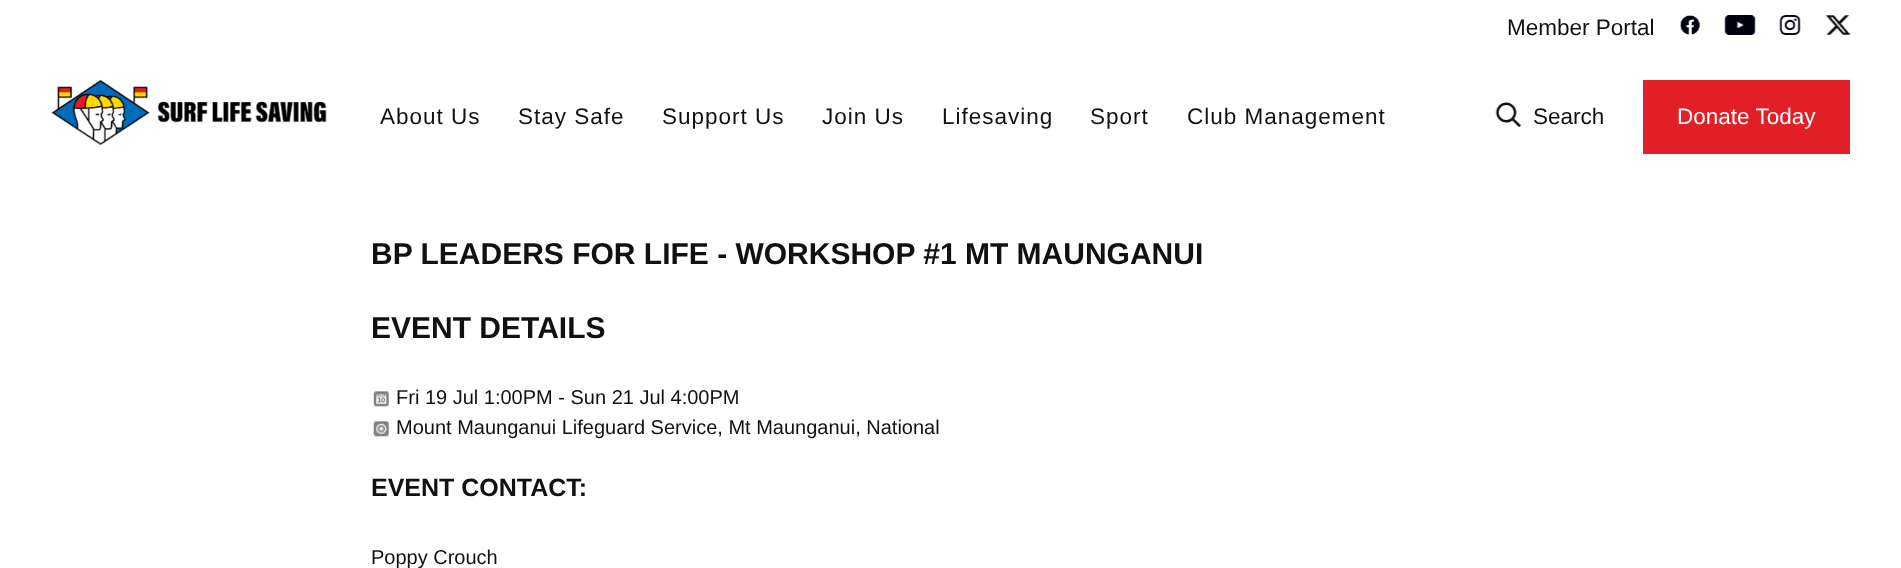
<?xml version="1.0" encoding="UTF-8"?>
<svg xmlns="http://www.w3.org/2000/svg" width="1901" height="568">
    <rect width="100%" height="100%" fill="#FFFFFF"/>
    <text x="1507" y="35" font-family="Liberation Sans" font-size="22.5" fill="#111111">Member Portal</text>
    <image x="1680" y="15" width="21" height="20" href="img_01.png"/>
    <image x="1724" y="15" width="32" height="20" href="img_02.png"/>
    <image x="1779" y="15" width="22" height="20" href="img_03.png"/>
    <image x="1825" y="15" width="26" height="20" href="img_04.png"/>
    <image x="51" y="80" width="276" height="65" href="img_05.png"/>
    <text x="380" y="124" font-family="Liberation Sans" font-size="22.5" letter-spacing="1" fill="#111111">About Us</text>
    <text x="518" y="124" font-family="Liberation Sans" font-size="22.5" letter-spacing="1" fill="#111111">Stay Safe</text>
    <text x="662" y="124" font-family="Liberation Sans" font-size="22.5" letter-spacing="1" fill="#111111">Support Us</text>
    <text x="822" y="124" font-family="Liberation Sans" font-size="22.5" letter-spacing="1" fill="#111111">Join Us</text>
    <text x="942" y="124" font-family="Liberation Sans" font-size="22.5" letter-spacing="1" fill="#111111">Lifesaving</text>
    <text x="1090" y="124" font-family="Liberation Sans" font-size="22.5" letter-spacing="1" fill="#111111">Sport</text>
    <text x="1187" y="124" font-family="Liberation Sans" font-size="22.5" letter-spacing="1" fill="#111111">Club Management</text>
    <image x="1495" y="102" width="26" height="26" href="img_06.png"/>
    <text x="1533" y="124" font-family="Liberation Sans" font-size="22.5" fill="#111111">Search</text>
    <rect x="1643" y="80" width="207" height="74" fill="#E21F27"/>
    <text x="1677" y="124" font-family="Liberation Sans" font-size="22.5" fill="#FFFFFF">Donate Today</text>
    <text x="371" y="264" font-family="Liberation Sans" font-size="30" font-weight="700" fill="#111111">BP LEADERS FOR LIFE - WORKSHOP #1 MT MAUNGANUI</text>
    <text x="371" y="338" font-family="Liberation Sans" font-size="30" font-weight="700" fill="#111111">EVENT DETAILS</text>
    <image x="373" y="391" width="16" height="16" href="img_07.png"/>
    <text x="396" y="404" font-family="Liberation Sans" font-size="20" fill="#111111">Fri 19 Jul 1:00PM - Sun 21 Jul 4:00PM</text>
    <image x="373" y="421" width="16" height="16" href="img_08.png"/>
    <text x="396" y="434" font-family="Liberation Sans" font-size="20" fill="#111111">Mount Maunganui Lifeguard Service, Mt Maunganui, National</text>
    <text x="371" y="496" font-family="Liberation Sans" font-size="25" font-weight="700" fill="#111111">EVENT CONTACT:</text>
    <text x="371" y="564" font-family="Liberation Sans" font-size="20" fill="#111111">Poppy Crouch</text>
</svg>
